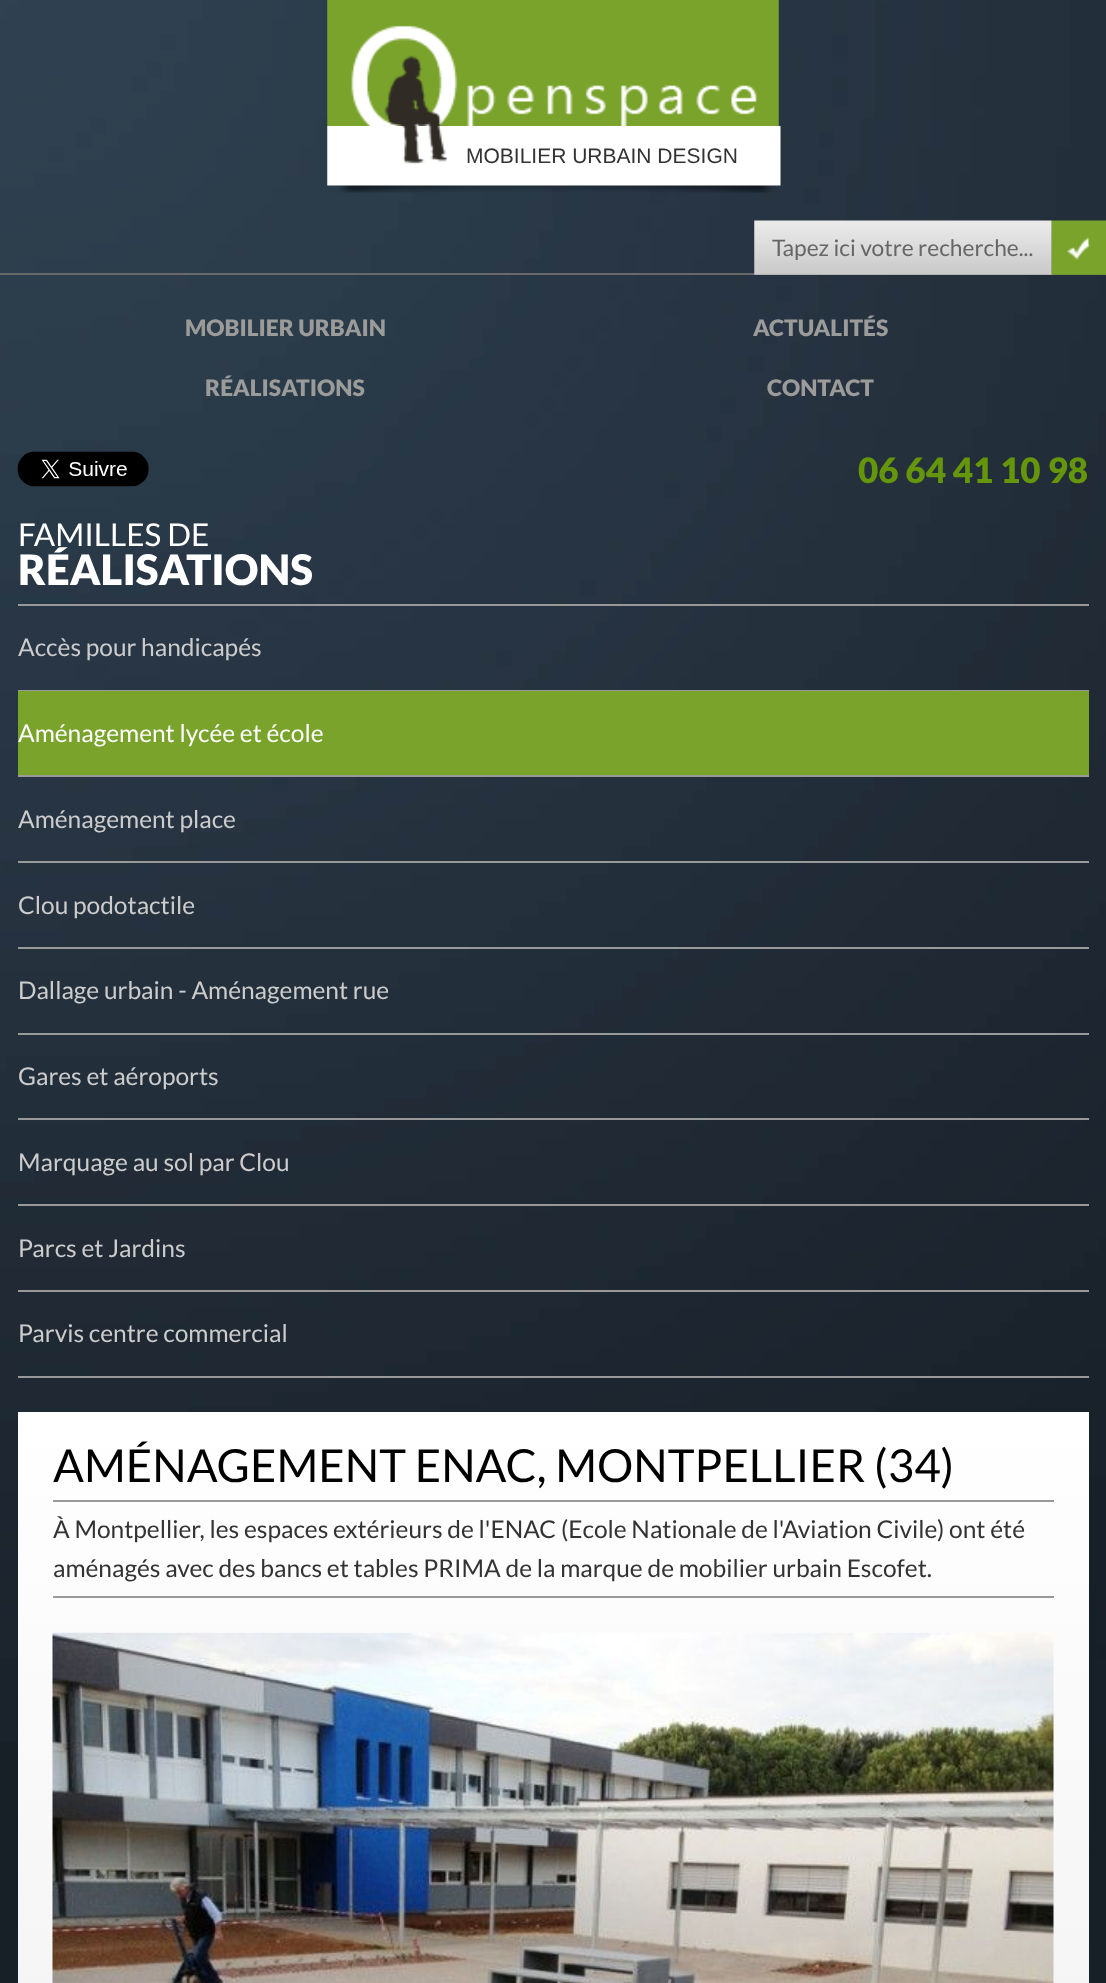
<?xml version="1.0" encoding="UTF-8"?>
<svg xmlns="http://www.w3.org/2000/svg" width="1106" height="1983">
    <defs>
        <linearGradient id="g1" gradientUnits="userSpaceOnUse" x1="553" y1="1412" x2="553" y2="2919"><stop offset="0" stop-color="#FFFFFF"/><stop offset="1" stop-color="#E5E5E5"/></linearGradient>
    </defs>
    <rect width="100%" height="100%" fill="#171F27"/>
    <image x="0" y="0" width="1106" height="1742" href="img_01.png"/>
    <rect x="0" y="273" width="1106" height="2" fill="#696969"/>
    <image x="327" y="0" width="452" height="126" href="img_02.png"/>
    <image x="327" y="126" width="454" height="67" href="img_03.png"/>
    <text x="466" y="163" font-family="Liberation Sans" font-size="21" fill="#333333">MOBILIER URBAIN DESIGN</text>
    <image x="754" y="220" width="298" height="55" href="img_04.png"/>
    <text x="772" y="256" font-family="Lato" font-size="22.75" fill="#666666">Tapez ici votre recherche...</text>
    <image x="1051" y="220" width="55" height="55" href="img_05.png"/>
    <text x="185" y="336" font-family="Lato" font-size="22.75" font-weight="900" fill="#9B9B9A">MOBILIER URBAIN</text>
    <text x="753" y="336" font-family="Lato" font-size="22.75" font-weight="900" fill="#9B9B9A">ACTUALITÉS</text>
    <text x="205" y="396" font-family="Lato" font-size="22.75" font-weight="900" fill="#9B9B9A">RÉALISATIONS</text>
    <text x="767" y="396" font-family="Lato" font-size="22.75" font-weight="900" fill="#9B9B9A">CONTACT</text>
    <image x="17" y="451" width="132" height="36" href="img_06.png"/>
    <text x="858" y="483" font-family="Lato" font-size="35" font-weight="900" fill="#65960A">06 64 41 10 98</text>
    <rect x="18" y="604" width="1071" height="2" fill="#999999"/>
    <text x="18" y="546" font-family="Lato" font-size="31.5" fill="#FFFFFF">FAMILLES DE</text>
    <text x="18" y="585" font-family="Lato" font-size="42" font-weight="900" fill="#FFFFFF">RÉALISATIONS</text>
    <rect x="18" y="690" width="1071" height="1" fill="#999999"/>
    <text x="18" y="656" font-family="Lato" font-size="24.5" fill="#CCCCCC">Accès pour handicapés</text>
    <rect x="18" y="691" width="1071" height="84" fill="#79A32B"/>
    <rect x="18" y="775" width="1071" height="2" fill="#999999"/>
    <text x="18" y="742" font-family="Lato" font-size="24.5" fill="#FFFFFF">Aménagement lycée et école</text>
    <rect x="18" y="861" width="1071" height="2" fill="#999999"/>
    <text x="18" y="828" font-family="Lato" font-size="24.5" fill="#CCCCCC">Aménagement place</text>
    <rect x="18" y="947" width="1071" height="2" fill="#999999"/>
    <text x="18" y="914" font-family="Lato" font-size="24.5" fill="#CCCCCC">Clou podotactile</text>
    <rect x="18" y="1033" width="1071" height="2" fill="#999999"/>
    <text x="18" y="999" font-family="Lato" font-size="24.5" fill="#CCCCCC">Dallage urbain - Aménagement rue</text>
    <rect x="18" y="1118" width="1071" height="2" fill="#999999"/>
    <text x="18" y="1085" font-family="Lato" font-size="24.5" fill="#CCCCCC">Gares et aéroports</text>
    <rect x="18" y="1204" width="1071" height="2" fill="#999999"/>
    <text x="18" y="1171" font-family="Lato" font-size="24.5" fill="#CCCCCC">Marquage au sol par Clou</text>
    <rect x="18" y="1290" width="1071" height="2" fill="#999999"/>
    <text x="18" y="1257" font-family="Lato" font-size="24.5" fill="#CCCCCC">Parcs et Jardins</text>
    <rect x="18" y="1376" width="1071" height="2" fill="#999999"/>
    <text x="18" y="1342" font-family="Lato" font-size="24.5" fill="#CCCCCC">Parvis centre commercial</text>
    <rect x="18" y="1412" width="1071" height="571" fill="url(#g1)"/>
    <text x="53" y="1482" font-family="Lato" font-size="45.5" fill="#000000">AMÉNAGEMENT ENAC, MONTPELLIER (34)</text>
    <rect x="53" y="1500" width="1001" height="2" fill="#999999"/>
    <rect x="53" y="1596" width="1001" height="2" fill="#999999"/>
    <text font-family="Lato" font-size="24.5" fill="#333333">
        <tspan x="53" y="1538">À Montpellier, les espaces extérieurs de l'ENAC (Ecole Nationale de l'Aviation Civile) ont été</tspan>
        <tspan x="53" y="1577">aménagés avec des bancs et tables PRIMA de la marque de mobilier urbain Escofet.</tspan>
    </text>
    <image x="52" y="1632" width="1002" height="351" href="img_07.png"/>
</svg>
